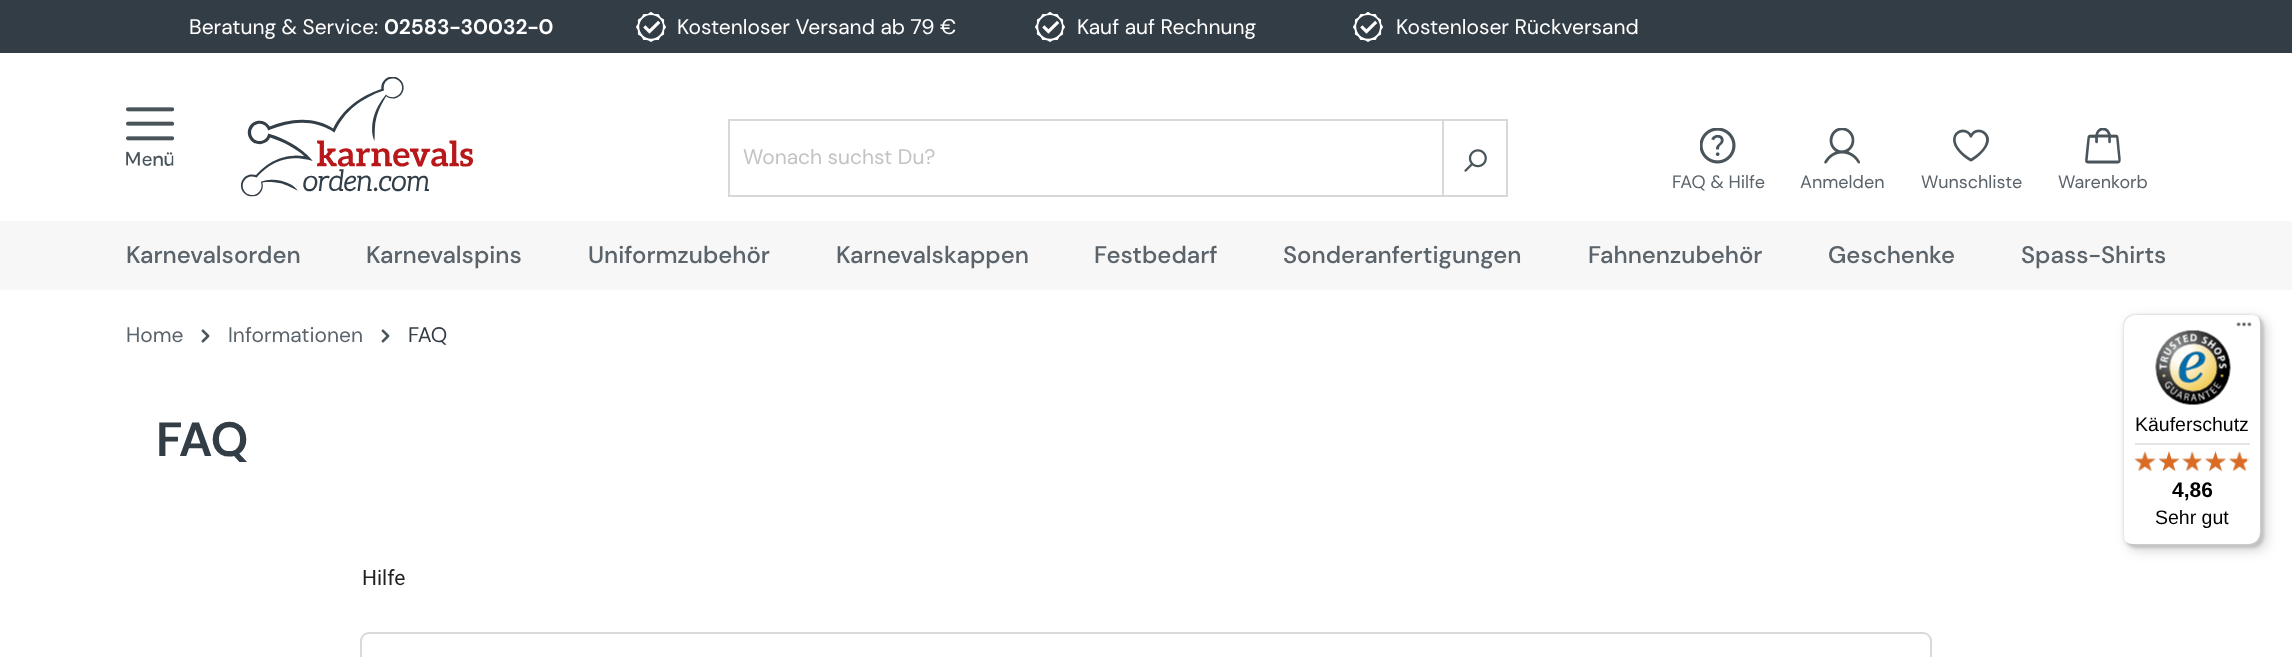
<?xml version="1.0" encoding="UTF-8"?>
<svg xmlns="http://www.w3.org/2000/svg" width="2292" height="657">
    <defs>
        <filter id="blur1" x="-50%" y="-200%" width="200%" height="500%"><feGaussianBlur stdDeviation="6"/></filter>
        <filter id="blur2" x="-50%" y="-200%" width="200%" height="500%"><feGaussianBlur stdDeviation="1.5"/></filter>
    </defs>
    <rect width="100%" height="100%" fill="#FFFFFF"/>
    <rect x="0" y="0" width="2292" height="53" fill="#333D46"/>
    <text x="189" y="34" font-family="DM Sans" font-size="21" fill="#FFFFFF">Beratung &amp; Service:</text>
    <text x="384" y="34" font-family="DM Sans" font-size="21" font-weight="700" fill="#FFFFFF">02583-30032-0</text>
    <image x="636" y="12" width="30" height="30" href="img_01.png"/>
    <text x="677" y="34" font-family="DM Sans" font-size="21" fill="#FFFFFF">Kostenloser Versand ab 79 €</text>
    <image x="1035" y="12" width="30" height="30" href="img_01.png"/>
    <text x="1077" y="34" font-family="DM Sans" font-size="21" fill="#FFFFFF">Kauf auf Rechnung</text>
    <image x="1353" y="12" width="30" height="30" href="img_01.png"/>
    <text x="1396" y="34" font-family="DM Sans" font-size="21" fill="#FFFFFF">Kostenloser Rückversand</text>
    <image x="126" y="107" width="48" height="59" href="img_02.png"/>
    <image x="240" y="77" width="233" height="120" href="img_03.png"/>
    <rect x="728" y="119" width="715" height="2" fill="#D6D8DA"/>
    <rect x="728" y="195" width="715" height="2" fill="#D6D8DA"/>
    <rect x="728" y="119" width="2" height="78" fill="#D6D8DA"/>
    <text x="743" y="164" font-family="DM Sans" font-size="21" fill="#C3C3C3">Wonach suchst Du?</text>
    <rect x="1443" y="120" width="64" height="76" fill="none" stroke="#D6D8DA" stroke-width="2"/>
    <image x="1464" y="149" width="23" height="23" href="img_04.png"/>
    <image x="1700" y="128" width="36" height="36" href="img_05.png"/>
    <text x="1672" y="188" font-family="DM Sans" font-size="18" fill="#5B636B">FAQ &amp; Hilfe</text>
    <image x="1824" y="128" width="36" height="36" href="img_06.png"/>
    <text x="1800" y="188" font-family="DM Sans" font-size="18" fill="#5B636B">Anmelden</text>
    <image x="1953" y="129" width="36" height="33" href="img_07.png"/>
    <text x="1921" y="188" font-family="DM Sans" font-size="18" fill="#5B636B">Wunschliste</text>
    <image x="2085" y="128" width="36" height="36" href="img_08.png"/>
    <text x="2058" y="188" font-family="DM Sans" font-size="18" fill="#5B636B">Warenkorb</text>
    <rect x="0" y="221" width="2292" height="69" fill="#F7F7F7"/>
    <text x="126" y="263" font-family="DM Sans" font-size="24" font-weight="500" fill="#5B636B">Karnevalsorden</text>
    <text x="366" y="263" font-family="DM Sans" font-size="24" font-weight="500" fill="#5B636B">Karnevalspins</text>
    <text x="588" y="263" font-family="DM Sans" font-size="24" font-weight="500" fill="#5B636B">Uniformzubehör</text>
    <text x="836" y="263" font-family="DM Sans" font-size="24" font-weight="500" fill="#5B636B">Karnevalskappen</text>
    <text x="1094" y="263" font-family="DM Sans" font-size="24" font-weight="500" fill="#5B636B">Festbedarf</text>
    <text x="1283" y="263" font-family="DM Sans" font-size="24" font-weight="500" fill="#5B636B">Sonderanfertigungen</text>
    <text x="1588" y="263" font-family="DM Sans" font-size="24" font-weight="500" fill="#5B636B">Fahnenzubehör</text>
    <text x="1828" y="263" font-family="DM Sans" font-size="24" font-weight="500" fill="#5B636B">Geschenke</text>
    <text x="2021" y="263" font-family="DM Sans" font-size="24" font-weight="500" fill="#5B636B">Spass-Shirts</text>
    <text x="126" y="342" font-family="DM Sans" font-size="21" fill="#5B636B">Home</text>
    <image x="201" y="329" width="9" height="14" href="img_09.png"/>
    <text x="228" y="342" font-family="DM Sans" font-size="21" fill="#5B636B">Informationen</text>
    <image x="381" y="329" width="9" height="14" href="img_09.png"/>
    <text x="408" y="342" font-family="DM Sans" font-size="21" fill="#333D46">FAQ</text>
    <text x="156" y="456" font-family="DM Sans" font-size="48" font-weight="700" fill="#333D46">FAQ</text>
    <text x="362" y="585" font-family="Roboto" font-size="21" fill="#212121">Hilfe</text>
    <rect x="361" y="633" width="1570" height="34" rx="8" fill="none" stroke="#D9D9D9" stroke-width="2"/>
    <rect x="2127" y="318" width="140" height="233" rx="12" fill="#000000" fill-opacity="0.15" filter="url(#blur1)"/>
    <rect x="2124" y="315" width="140" height="233" rx="12" fill="#000000" fill-opacity="0.15" filter="url(#blur2)"/>
    <rect x="2123" y="314" width="139" height="232" rx="12" fill="#FFFFFF"/>
    <path d="M 2136 315 H 2252 L 2257 316 C 2255 315 2252 314 2250 314 H 2135 C 2128 314 2123 319 2123 326 V 534 C 2123 536 2124 539 2125 541 L 2124 536 V 327 C 2124 320 2129 315 2136 315 Z" fill="#E5E5E5"/>
    <path d="M 2126 542 C 2128 544 2131 546 2135 546 H 2250 C 2257 546 2262 541 2262 534 V 326 C 2262 322 2260 319 2258 317 C 2259 319 2260 321 2260 324 V 532 C 2260 539 2255 544 2248 544 H 2133 C 2130 544 2128 543 2126 542 Z" fill="#000000" fill-opacity="0.2"/>
    <path d="M 2127 543 C 2129 545 2132 546 2135 546 H 2250 C 2257 546 2262 541 2262 534 V 326 C 2262 323 2261 320 2259 318 C 2260 320 2261 322 2261 325 V 533 C 2261 540 2256 545 2249 545 H 2134 C 2131 545 2129 544 2127 543 Z" fill="#323232" fill-opacity="0.2"/>
    <path d="M 2127 543 C 2129 545 2132 546 2135 546 H 2250 C 2257 546 2262 541 2262 534 V 326 C 2262 323 2261 320 2259 318 C 2260 320 2261 322 2261 325 V 533 C 2261 540 2256 545 2249 545 H 2134 C 2131 545 2129 544 2127 543 Z" fill="#FFFFFF" fill-opacity="0.3"/>
    <image x="2236" y="322" width="16" height="5" href="img_10.png"/>
    <image x="2155" y="330" width="76" height="75" href="img_11.png"/>
    <text x="2135" y="431" font-family="Liberation Sans" font-size="19.5" fill="#000000">Käuferschutz</text>
    <rect x="2135" y="443" width="115" height="2" fill="#E5E5E5"/>
    <image x="2135" y="452" width="20" height="19" href="img_17.png"/>
    <image x="2134" y="451" width="22" height="20" href="img_12.png"/>
    <image x="2159" y="451" width="20" height="20" href="img_18.png"/>
    <image x="2159" y="451" width="20" height="20" href="img_13.png"/>
    <image x="2182" y="451" width="20" height="20" href="img_19.png"/>
    <image x="2182" y="451" width="20" height="20" href="img_14.png"/>
    <image x="2205" y="451" width="21" height="20" href="img_20.png"/>
    <image x="2205" y="451" width="21" height="20" href="img_15.png"/>
    <image x="2229" y="452" width="21" height="19" href="img_21.png"/>
    <image x="2229" y="451" width="18" height="20" href="img_16.png"/>
    <text x="2172" y="497" font-family="Liberation Sans" font-size="21" font-weight="700" fill="#000000">4,86</text>
    <text x="2155" y="524" font-family="Liberation Sans" font-size="19.5" fill="#000000">Sehr gut</text>
</svg>
